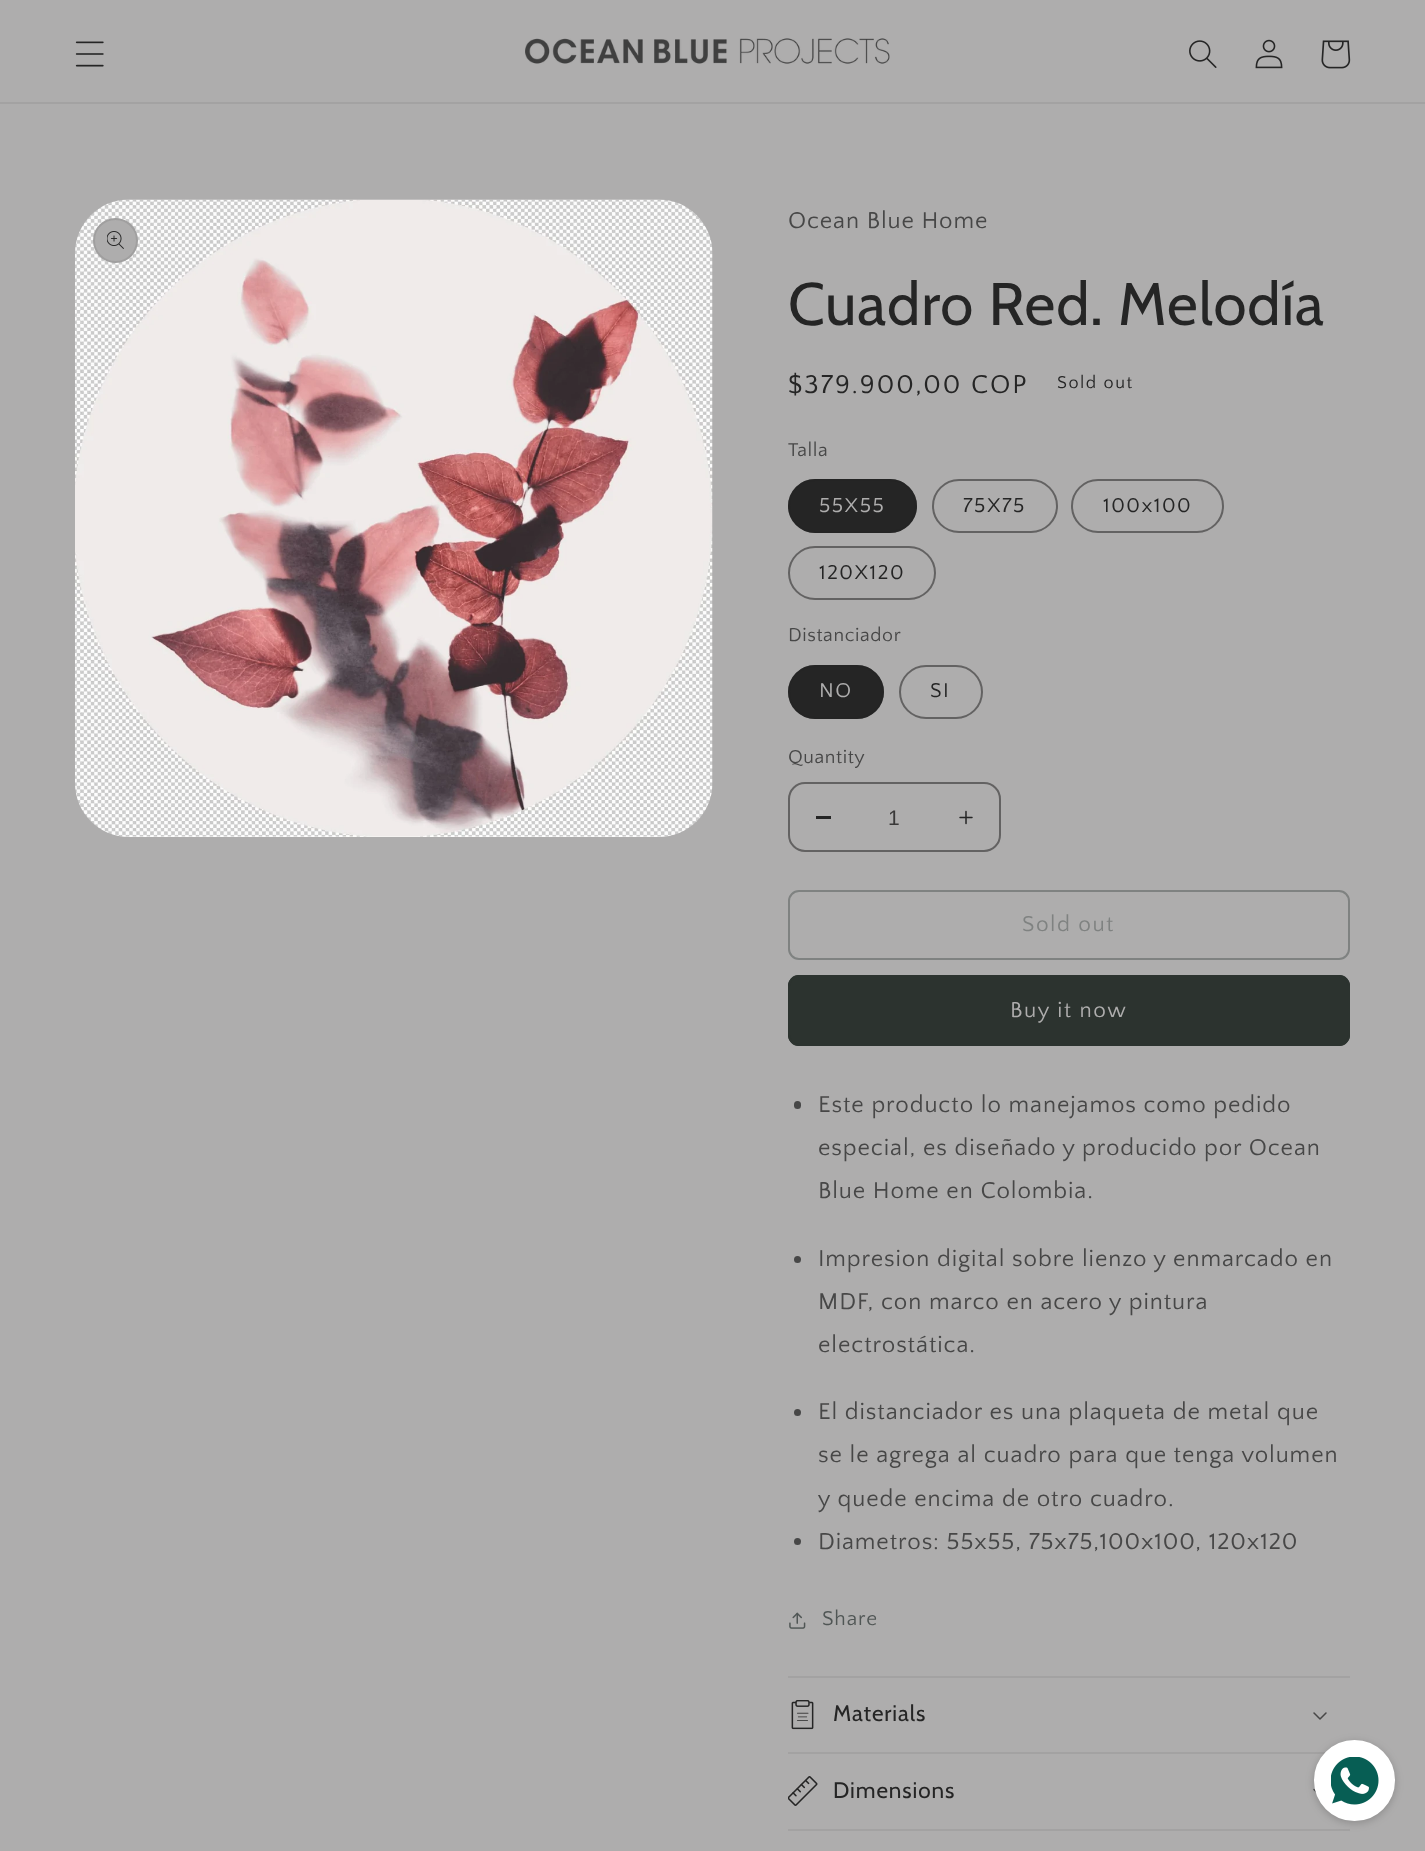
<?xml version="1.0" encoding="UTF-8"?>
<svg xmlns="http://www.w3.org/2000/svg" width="1425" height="1851">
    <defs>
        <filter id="blur1" x="-50%" y="-200%" width="200%" height="500%"><feGaussianBlur stdDeviation="4.5"/></filter>
    </defs>
    <rect width="100%" height="100%" fill="#AEADAD"/>
    <rect x="0" y="102" width="1425" height="2" fill="#A3A2A2"/>
    <image x="75" y="41" width="29" height="26" href="img_01.png"/>
    <image x="525" y="38" width="365" height="26" href="img_02.png"/>
    <image x="1189" y="40" width="28" height="28" href="img_03.png"/>
    <image x="1255" y="39" width="28" height="30" href="img_04.png"/>
    <image x="1321" y="40" width="30" height="29" href="img_05.png"/>
    <image x="75" y="199" width="638" height="638" href="img_06.png"/>
    <circle cx="115.5" cy="240.5" r="22.5" fill="#AEADAD"/>
    <circle cx="115.5" cy="240.5" r="21.5" fill="none" stroke="#252525" stroke-opacity="0.1" stroke-width="2"/>
    <image x="107" y="231" width="17" height="18" href="img_07.png"/>
    <text x="788" y="228" font-family="Quattrocento Sans" font-size="24" letter-spacing="0.9" fill="#474747">Ocean Blue Home</text>
    <text x="788" y="325" font-family="Cabin" font-size="60" letter-spacing="0.9" fill="#252525">Cuadro Red. Melodía</text>
    <text x="788" y="393" font-family="Quattrocento Sans" font-size="27" letter-spacing="2" fill="#252525">$379.900,00 COP</text>
    <text x="1057" y="388" font-family="Quattrocento Sans" font-size="18" letter-spacing="1.5" fill="#252525">Sold out</text>
    <text x="788" y="456" font-family="Quattrocento Sans" font-size="19.5" letter-spacing="0.6" fill="#474747">Talla</text>
    <rect x="788" y="479" width="129" height="54" rx="27" fill="#252525"/>
    <rect x="789" y="480" width="127" height="52" rx="26" fill="none" stroke="#252525" stroke-opacity="0.55" stroke-width="2"/>
    <text x="819" y="512" font-family="Quattrocento Sans" font-size="21" letter-spacing="1.5" fill="#AEADAD">55X55</text>
    <rect x="933" y="480" width="124" height="52" rx="26" fill="none" stroke="#636262" stroke-width="2"/>
    <text x="963" y="512" font-family="Quattrocento Sans" font-size="21" letter-spacing="1.5" fill="#252525">75X75</text>
    <rect x="1072" y="480" width="151" height="52" rx="26" fill="none" stroke="#636262" stroke-width="2"/>
    <text x="1103" y="512" font-family="Quattrocento Sans" font-size="21" letter-spacing="1.5" fill="#252525">100x100</text>
    <rect x="789" y="547" width="146" height="52" rx="26" fill="none" stroke="#636262" stroke-width="2"/>
    <text x="819" y="579" font-family="Quattrocento Sans" font-size="21" letter-spacing="1.5" fill="#252525">120X120</text>
    <text x="788" y="641" font-family="Quattrocento Sans" font-size="19.5" letter-spacing="0.6" fill="#474747">Distanciador</text>
    <rect x="788" y="665" width="96" height="54" rx="27" fill="#252525"/>
    <rect x="789" y="666" width="94" height="52" rx="26" fill="none" stroke="#252525" stroke-opacity="0.55" stroke-width="2"/>
    <text x="819" y="697" font-family="Quattrocento Sans" font-size="21" letter-spacing="1.5" fill="#AEADAD">NO</text>
    <rect x="900" y="666" width="82" height="52" rx="26" fill="none" stroke="#636262" stroke-width="2"/>
    <text x="930" y="697" font-family="Quattrocento Sans" font-size="21" letter-spacing="1.5" fill="#252525">SI</text>
    <text x="788" y="763" font-family="Quattrocento Sans" font-size="19.5" letter-spacing="0.6" fill="#474747">Quantity</text>
    <rect x="816" y="816" width="15" height="3" fill="#252525"/>
    <image x="959" y="810" width="14" height="15" href="img_08.png"/>
    <rect x="789" y="783" width="211" height="68" rx="16" fill="none" stroke="#636262" stroke-width="2"/>
    <text x="888" y="825" font-family="Liberation Sans" font-size="21" fill="#3A3939">1</text>
    <rect x="789" y="891" width="560" height="68" rx="10" fill="none" stroke="#7F8281" stroke-width="2"/>
    <text x="1022" y="931" font-family="Quattrocento Sans" font-size="22.5" letter-spacing="1.5" fill="#7F8281">Sold out</text>
    <rect x="788" y="975" width="562" height="71" rx="11" fill="#2C332F"/>
    <rect x="789" y="976" width="560" height="69" rx="10" fill="none" stroke="#2C332F" stroke-width="2"/>
    <text x="1010" y="1017" font-family="Quattrocento Sans" font-size="22.5" letter-spacing="1.5" fill="#AEADAD">Buy it now</text>
    <rect x="794" y="1101" width="7" height="8" rx="3.5" fill="#474747"/>
    <text font-family="Quattrocento Sans" font-size="24" letter-spacing="0.9" fill="#474747">
        <tspan x="818" y="1112">Este producto lo manejamos como pedido</tspan>
        <tspan x="818" y="1155">especial, es diseñado y producido por Ocean</tspan>
        <tspan x="818" y="1198">Blue Home en Colombia.</tspan>
    </text>
    <circle cx="797.5" cy="1259.5" r="3.5" fill="#474747"/>
    <text font-family="Quattrocento Sans" font-size="24" letter-spacing="0.9" fill="#474747">
        <tspan x="818" y="1266">Impresion digital sobre lienzo y enmarcado en</tspan>
        <tspan x="818" y="1309">MDF, con marco en acero y pintura</tspan>
        <tspan x="818" y="1352">electrostática.</tspan>
    </text>
    <circle cx="797.5" cy="1412.5" r="3.5" fill="#474747"/>
    <text font-family="Quattrocento Sans" font-size="24" letter-spacing="0.9" fill="#474747">
        <tspan x="818" y="1419">El distanciador es una plaqueta de metal que</tspan>
        <tspan x="818" y="1462">se le agrega al cuadro para que tenga volumen</tspan>
        <tspan x="818" y="1506">y quede encima de otro cuadro.</tspan>
    </text>
    <circle cx="797.5" cy="1541.5" r="3.5" fill="#474747"/>
    <text x="818" y="1549" font-family="Quattrocento Sans" font-size="24" letter-spacing="0.9" fill="#474747">Diametros: 55x55, 75x75,100x100, 120x120</text>
    <image x="789" y="1612" width="17" height="17" href="img_09.png"/>
    <text x="822" y="1625" font-family="Quattrocento Sans" font-size="21" letter-spacing="0.9" fill="#505655">Share</text>
    <rect x="788" y="1676" width="562" height="2" fill="#A3A2A2"/>
    <rect x="788" y="1752" width="538" height="2" fill="#A3A2A2"/>
    <image x="791" y="1700" width="23" height="30" href="img_10.png"/>
    <text x="833" y="1721" font-family="Cabin" font-size="22.5" letter-spacing="0.9" fill="#252525">Materials</text>
    <image x="1313" y="1712" width="14" height="8" href="img_11.png"/>
    <rect x="788" y="1829" width="562" height="2" fill="#A3A2A2"/>
    <image x="788" y="1776" width="30" height="30" href="img_12.png"/>
    <text x="833" y="1798" font-family="Cabin" font-size="22.5" letter-spacing="0.9" fill="#252525">Dimensions</text>
    <image x="1313" y="1788" width="4" height="6" href="img_13.png"/>
    <rect x="1314" y="1742" width="81" height="81" rx="40.5" fill="#1B1B1B" fill-opacity="0.2" filter="url(#blur1)"/>
    <circle cx="1354.5" cy="1780.5" r="39.5" fill="#FFFFFF" stroke="#FFFFFF" stroke-width="2"/>
    <image x="1331" y="1757" width="48" height="48" href="img_14.png"/>
</svg>
